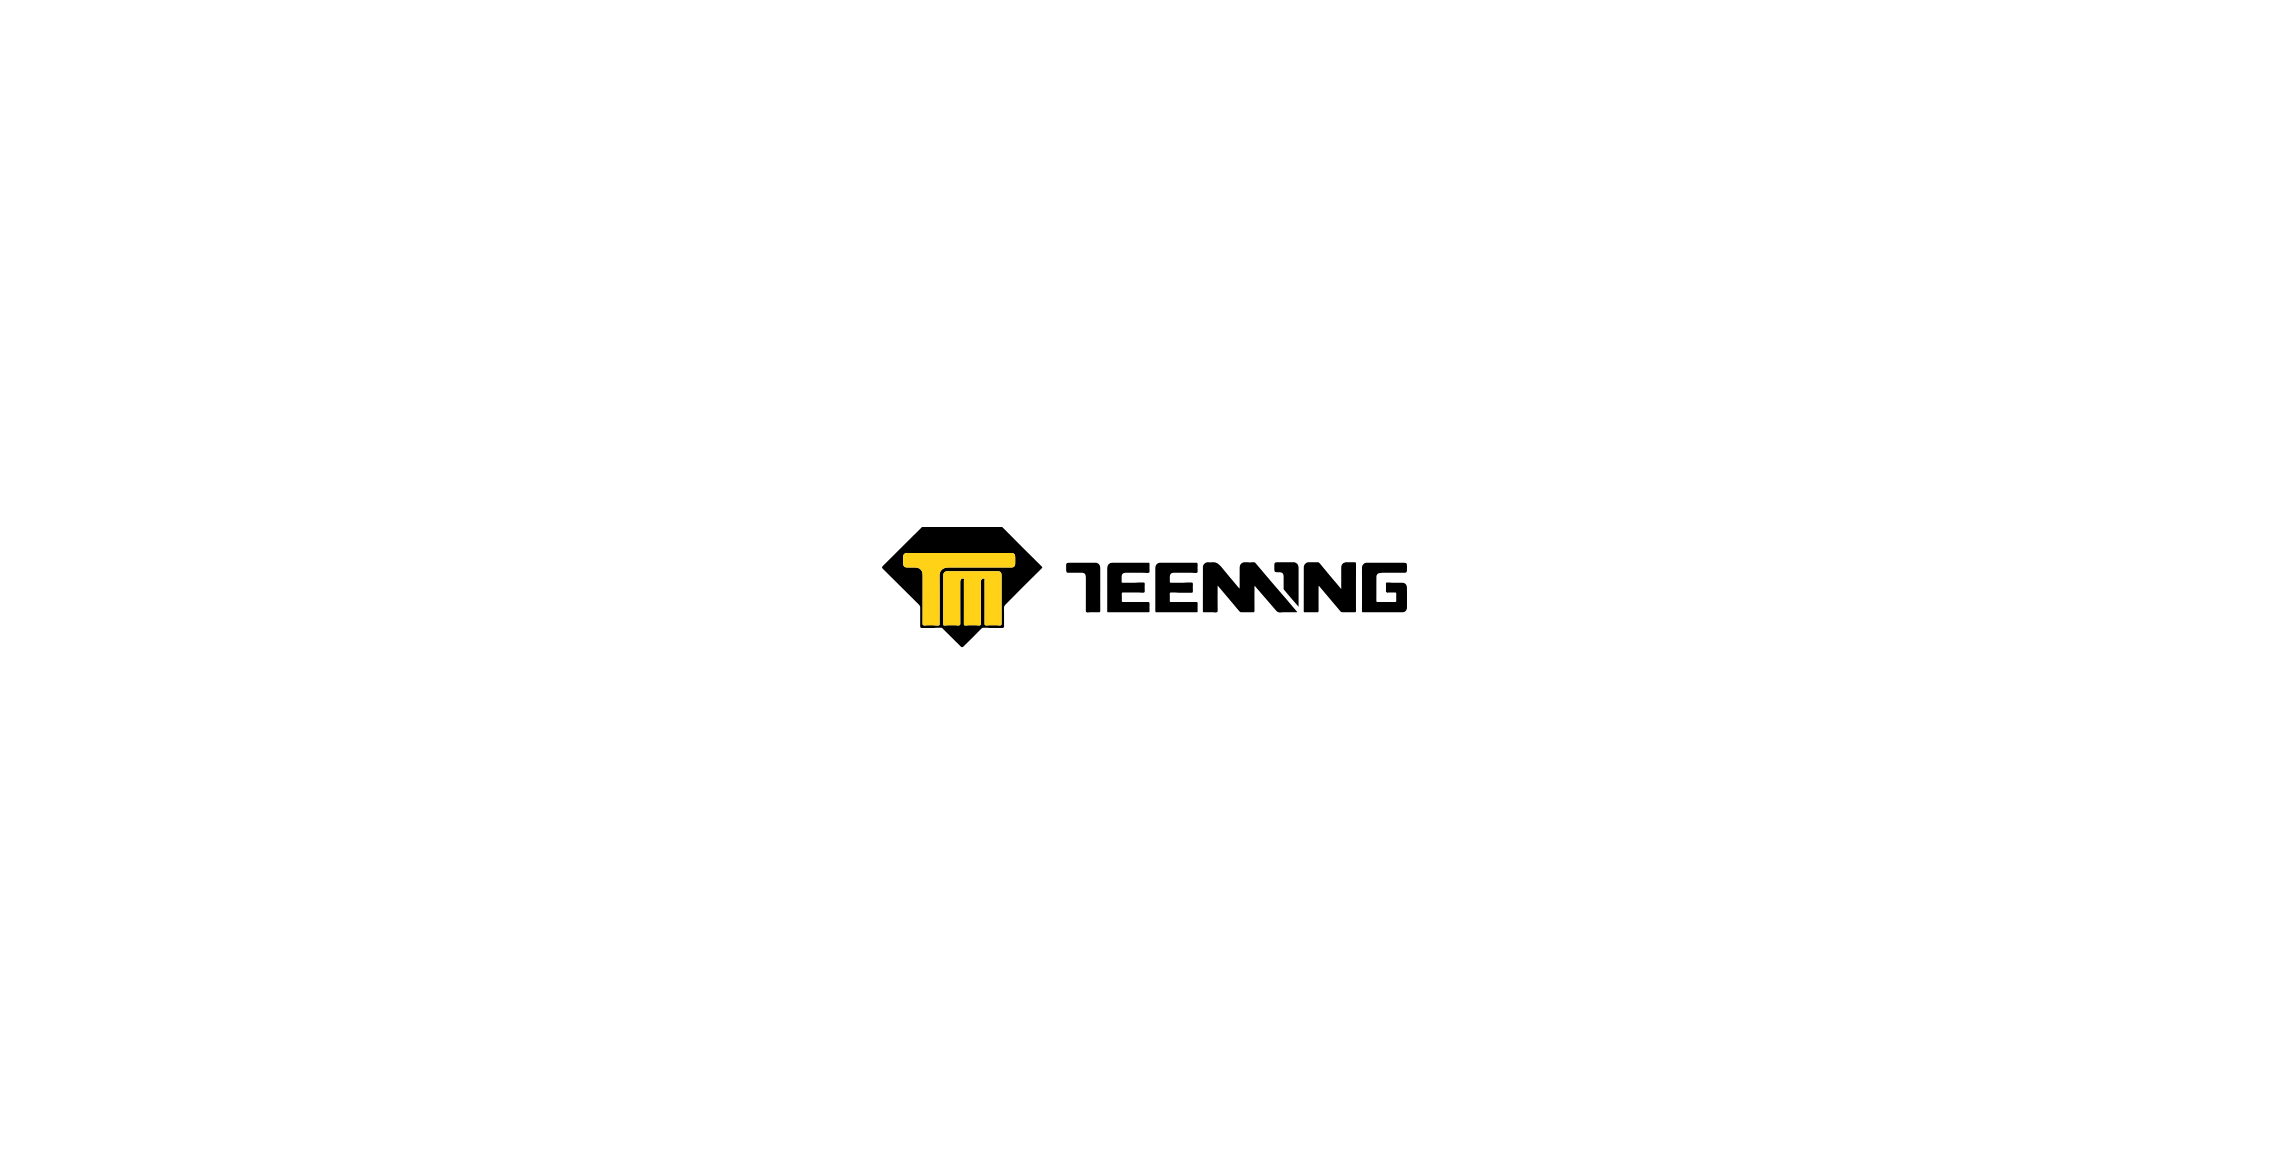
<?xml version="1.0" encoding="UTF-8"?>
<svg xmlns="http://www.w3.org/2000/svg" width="2289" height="1171">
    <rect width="100%" height="100%" fill="#FFFFFF"/>
    <image x="882" y="527" width="525" height="121" href="img_01.png"/>
</svg>
